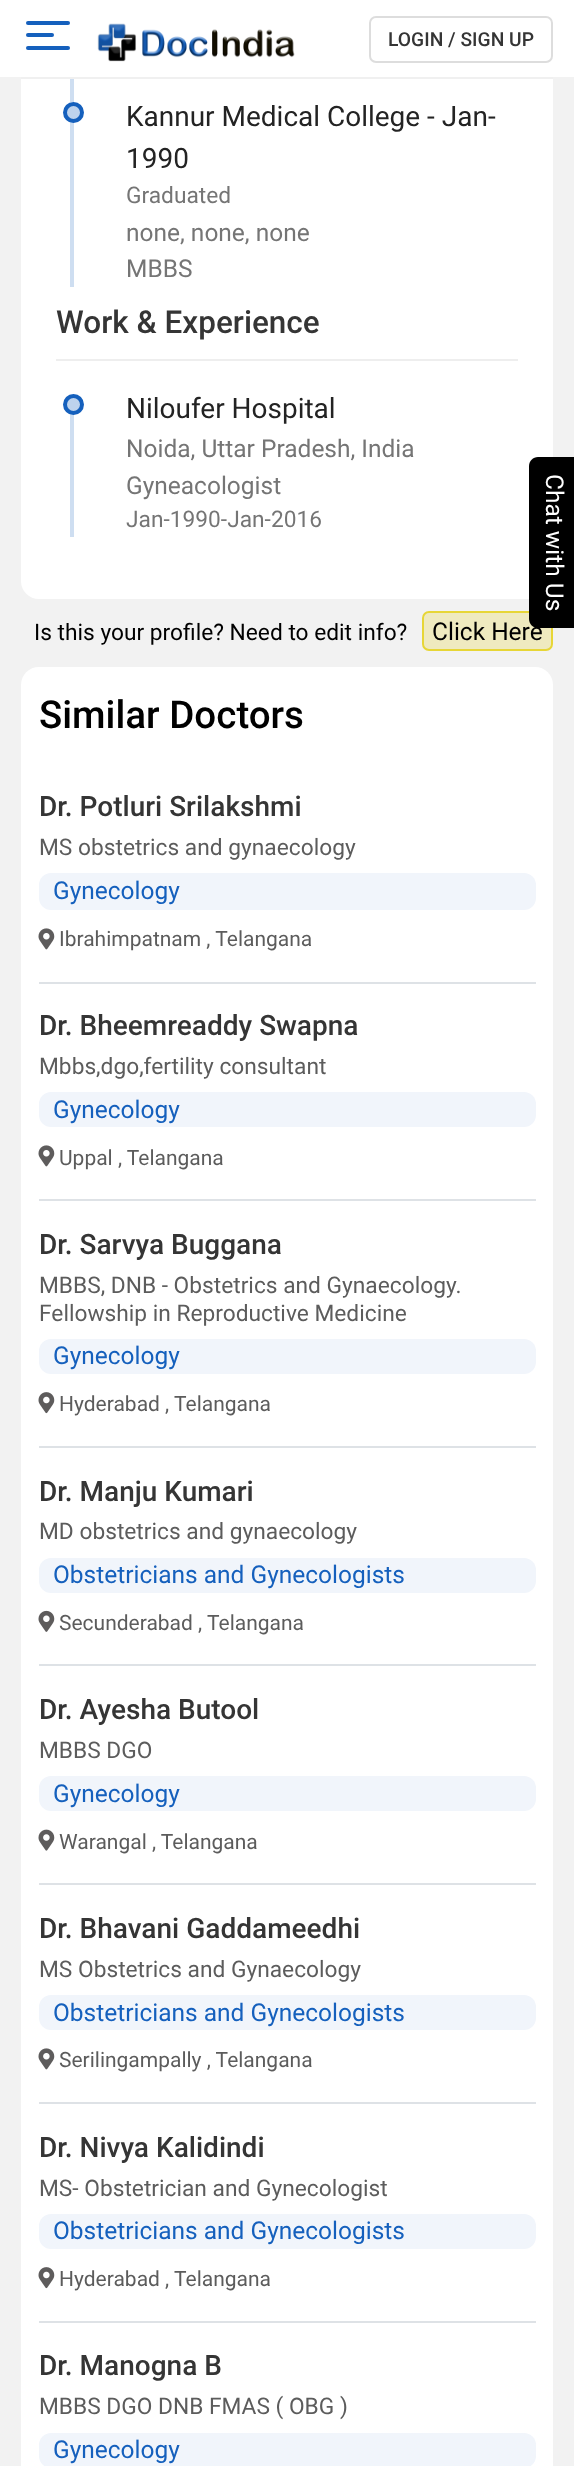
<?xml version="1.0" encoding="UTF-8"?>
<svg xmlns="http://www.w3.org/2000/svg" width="574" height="2466">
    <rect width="100%" height="100%" fill="#F2F2F2"/>
    <rect x="21" y="-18" width="532" height="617" rx="18" fill="#FFFFFF"/>
    <rect x="0" y="0" width="574" height="77" fill="#FFFFFF"/>
    <rect x="21" y="77" width="532" height="2" fill="#F0F0F0"/>
    <rect x="26" y="21" width="44" height="4" rx="2" fill="#1560BD"/>
    <rect x="26" y="33" width="28" height="4" rx="2" fill="#1560BD"/>
    <rect x="26" y="46" width="44" height="4" rx="2" fill="#1560BD"/>
    <image x="97" y="23" width="198" height="39" href="img_01.png"/>
    <rect x="370" y="17" width="182" height="45" rx="6" fill="none" stroke="#DDDDDD" stroke-width="2"/>
    <text x="388" y="46" font-family="Roboto" font-size="19.25" font-weight="500" fill="#353535">LOGIN / SIGN UP</text>
    <rect x="70" y="79" width="4" height="208" fill="#CEDEF1"/>
    <rect x="70" y="102" width="4" height="17" fill="#FFFFFF"/>
    <circle cx="73.5" cy="112.5" r="8.5" fill="#1560BD" fill-opacity="0.28" stroke="#1560BD" stroke-width="4"/>
    <text font-family="Roboto" font-size="28" fill="#232323">
        <tspan x="126" y="126">Kannur Medical College - Jan-</tspan>
        <tspan x="126" y="168">1990</tspan>
    </text>
    <text x="126" y="203" font-family="Roboto" font-size="22.75" fill="#757575">Graduated</text>
    <text font-family="Roboto" font-size="24.5" fill="#757575">
        <tspan x="126" y="241">none, none, none</tspan>
        <tspan x="126" y="277">MBBS</tspan>
    </text>
    <rect x="56" y="359" width="462" height="2" fill="#EEEEEE"/>
    <text x="56" y="333" font-family="Roboto" font-size="31.5" font-weight="500" fill="#353535">Work &amp; Experience</text>
    <rect x="70" y="414" width="4" height="123" fill="#CEDEF1"/>
    <circle cx="73.5" cy="404.5" r="8.5" fill="#1560BD" fill-opacity="0.28" stroke="#1560BD" stroke-width="4"/>
    <text x="126" y="418" font-family="Roboto" font-size="28" fill="#232323">Niloufer Hospital</text>
    <text font-family="Roboto" font-size="24.5" fill="#757575">
        <tspan x="126" y="457">Noida, Uttar Pradesh, India</tspan>
        <tspan x="126" y="494">Gyneacologist</tspan>
    </text>
    <text x="126" y="527" font-family="Roboto" font-size="22.75" fill="#757575">Jan-1990-Jan-2016</text>
    <text x="34" y="640" font-family="Roboto" font-size="22.75" fill="#000000">Is this your profile? Need to edit info?</text>
    <rect x="423" y="612" width="129" height="38" rx="6" fill="#EFEABF" stroke="#E7D636" stroke-width="2"/>
    <text x="432" y="640" font-family="Roboto" font-size="24.5" fill="#000000">Click Here</text>
    <rect x="21" y="667" width="532" height="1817" rx="18" fill="#FFFFFF"/>
    <text x="39" y="728" font-family="Roboto" font-size="38.5" font-weight="500" fill="#000000">Similar Doctors</text>
    <rect x="39" y="982" width="497" height="2" fill="#DEE2E6"/>
    <text x="39" y="816" font-family="Roboto" font-size="28" font-weight="500" fill="#353535">Dr. Potluri Srilakshmi</text>
    <text x="39" y="855" font-family="Roboto" font-size="22.75" fill="#5C5C5C">MS obstetrics and gynaecology</text>
    <rect x="39" y="873" width="497" height="37" rx="12" fill="#F1F5FB"/>
    <text x="53" y="899" font-family="Roboto" font-size="24.5" fill="#1560BD">Gynecology</text>
    <image x="38" y="928" width="17" height="22" href="img_02.png"/>
    <text x="59" y="946" font-family="Roboto" font-size="21" fill="#5C5C5C">Ibrahimpatnam , Telangana</text>
    <rect x="39" y="1199" width="497" height="2" fill="#DEE2E6"/>
    <text x="39" y="1035" font-family="Roboto" font-size="28" font-weight="500" fill="#353535">Dr. Bheemreaddy Swapna</text>
    <text x="39" y="1074" font-family="Roboto" font-size="22.75" fill="#5C5C5C">Mbbs,dgo,fertility consultant</text>
    <rect x="39" y="1092" width="497" height="35" rx="12" fill="#F1F5FB"/>
    <text x="53" y="1118" font-family="Roboto" font-size="24.5" fill="#1560BD">Gynecology</text>
    <image x="38" y="1145" width="17" height="22" href="img_02.png"/>
    <text x="59" y="1165" font-family="Roboto" font-size="21" fill="#5C5C5C">Uppal , Telangana</text>
    <rect x="39" y="1446" width="497" height="2" fill="#DEE2E6"/>
    <text x="39" y="1254" font-family="Roboto" font-size="28" font-weight="500" fill="#353535">Dr. Sarvya Buggana</text>
    <text font-family="Roboto" font-size="22.75" fill="#5C5C5C">
        <tspan x="39" y="1293">MBBS, DNB - Obstetrics and Gynaecology.</tspan>
        <tspan x="39" y="1321">Fellowship in Reproductive Medicine</tspan>
    </text>
    <rect x="39" y="1339" width="497" height="35" rx="12" fill="#F1F5FB"/>
    <text x="53" y="1364" font-family="Roboto" font-size="24.5" fill="#1560BD">Gynecology</text>
    <image x="38" y="1392" width="17" height="22" href="img_03.png"/>
    <text x="59" y="1411" font-family="Roboto" font-size="21" fill="#5C5C5C">Hyderabad , Telangana</text>
    <rect x="39" y="1664" width="497" height="2" fill="#DEE2E6"/>
    <text x="39" y="1501" font-family="Roboto" font-size="28" font-weight="500" fill="#353535">Dr. Manju Kumari</text>
    <text x="39" y="1539" font-family="Roboto" font-size="22.75" fill="#5C5C5C">MD obstetrics and gynaecology</text>
    <rect x="39" y="1558" width="497" height="35" rx="12" fill="#F1F5FB"/>
    <text x="53" y="1583" font-family="Roboto" font-size="24.5" fill="#1560BD">Obstetricians and Gynecologists</text>
    <image x="38" y="1610" width="17" height="22" href="img_04.png"/>
    <text x="59" y="1630" font-family="Roboto" font-size="21" fill="#5C5C5C">Secunderabad , Telangana</text>
    <rect x="39" y="1883" width="497" height="2" fill="#DEE2E6"/>
    <text x="39" y="1719" font-family="Roboto" font-size="28" font-weight="500" fill="#353535">Dr. Ayesha Butool</text>
    <text x="39" y="1758" font-family="Roboto" font-size="22.75" fill="#5C5C5C">MBBS DGO</text>
    <rect x="39" y="1776" width="497" height="35" rx="12" fill="#F1F5FB"/>
    <text x="53" y="1802" font-family="Roboto" font-size="24.5" fill="#1560BD">Gynecology</text>
    <image x="38" y="1829" width="17" height="22" href="img_05.png"/>
    <text x="59" y="1849" font-family="Roboto" font-size="21" fill="#5C5C5C">Warangal , Telangana</text>
    <rect x="39" y="2102" width="497" height="2" fill="#DEE2E6"/>
    <text x="39" y="1938" font-family="Roboto" font-size="28" font-weight="500" fill="#353535">Dr. Bhavani Gaddameedhi</text>
    <text x="39" y="1977" font-family="Roboto" font-size="22.75" fill="#5C5C5C">MS Obstetrics and Gynaecology</text>
    <rect x="39" y="1995" width="497" height="35" rx="12" fill="#F1F5FB"/>
    <text x="53" y="2021" font-family="Roboto" font-size="24.5" fill="#1560BD">Obstetricians and Gynecologists</text>
    <image x="38" y="2048" width="17" height="22" href="img_02.png"/>
    <text x="59" y="2067" font-family="Roboto" font-size="21" fill="#5C5C5C">Serilingampally , Telangana</text>
    <rect x="39" y="2321" width="497" height="2" fill="#DEE2E6"/>
    <text x="39" y="2157" font-family="Roboto" font-size="28" font-weight="500" fill="#353535">Dr. Nivya Kalidindi</text>
    <text x="39" y="2196" font-family="Roboto" font-size="22.75" fill="#5C5C5C">MS- Obstetrician and Gynecologist</text>
    <rect x="39" y="2214" width="497" height="35" rx="12" fill="#F1F5FB"/>
    <text x="53" y="2239" font-family="Roboto" font-size="24.5" fill="#1560BD">Obstetricians and Gynecologists</text>
    <image x="38" y="2267" width="17" height="22" href="img_03.png"/>
    <text x="59" y="2286" font-family="Roboto" font-size="21" fill="#5C5C5C">Hyderabad , Telangana</text>
    <text x="39" y="2375" font-family="Roboto" font-size="28" font-weight="500" fill="#353535">Dr. Manogna B</text>
    <text x="39" y="2414" font-family="Roboto" font-size="22.75" fill="#5C5C5C">MBBS DGO DNB FMAS ( OBG )</text>
    <rect x="39" y="2433" width="497" height="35" rx="12" fill="#F1F5FB"/>
    <text x="53" y="2458" font-family="Roboto" font-size="24.5" fill="#1560BD">Gynecology</text>
    <path d="M 538 457 H 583 V 628 H 538 C 533 628 529 624 529 619 V 466 C 529 461 533 457 538 457 Z" fill="#000000"/>
    <text x="546" y="474" transform="rotate(90 546 474)" font-family="Roboto" font-size="24.5" fill="#FFFFFF">Chat with Us</text>
</svg>
